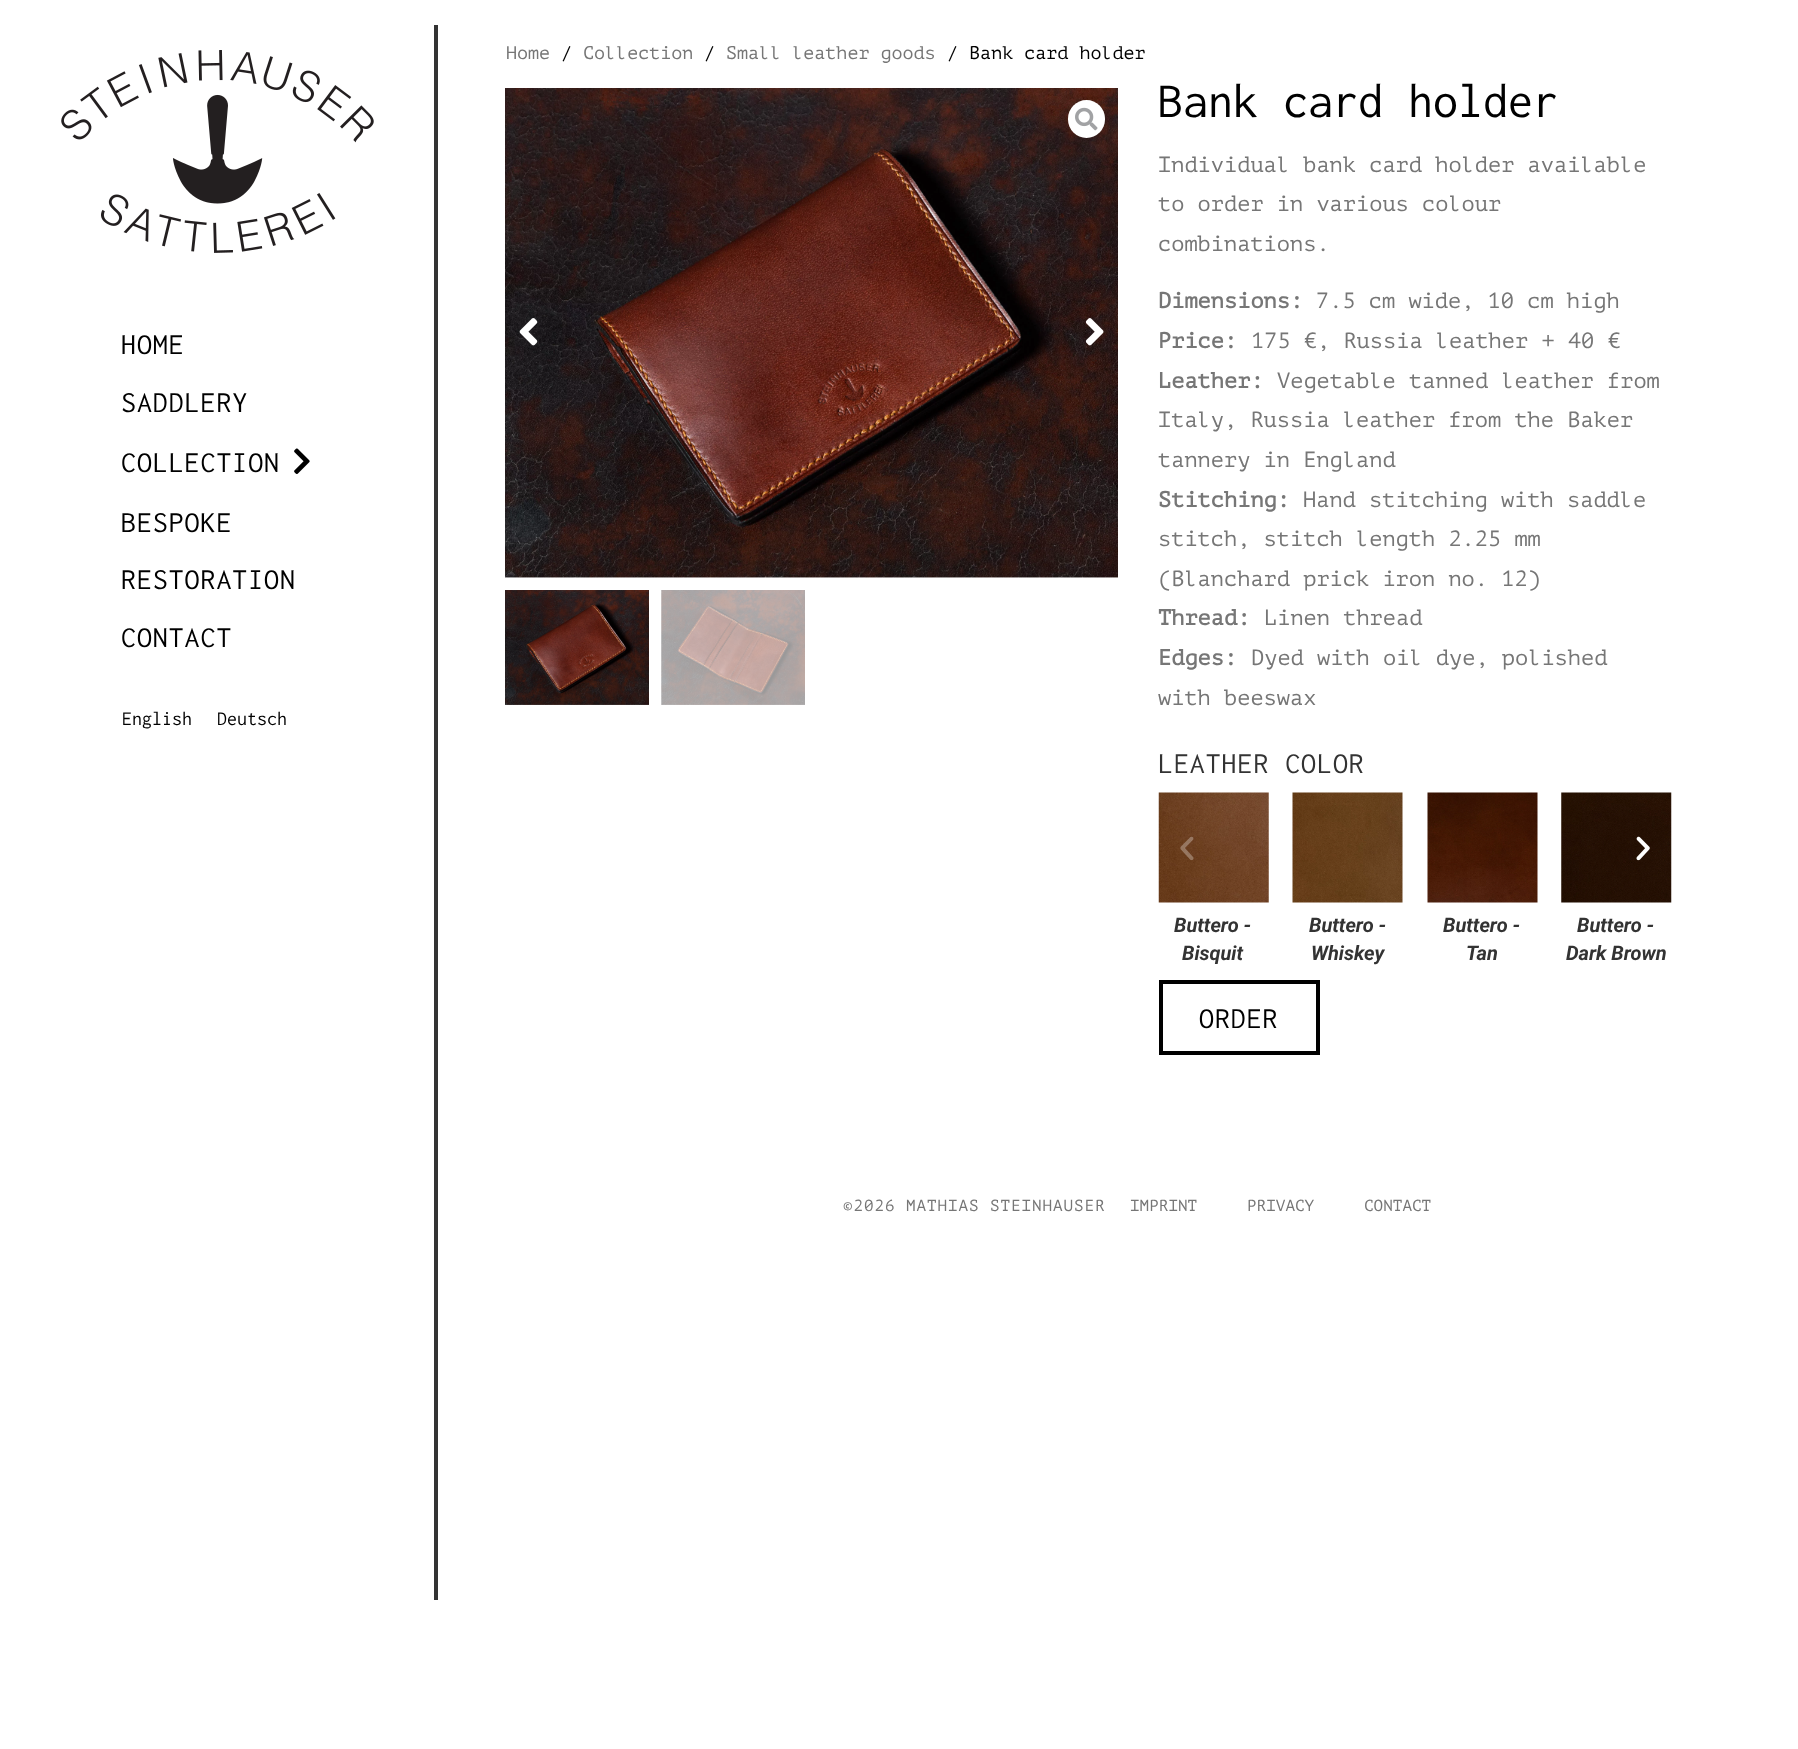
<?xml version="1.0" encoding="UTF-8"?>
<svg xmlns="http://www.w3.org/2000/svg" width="1798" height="1749">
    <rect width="100%" height="100%" fill="#FFFFFF"/>
    <rect x="434" y="25" width="4" height="1575" fill="#333333"/>
    <image x="61" y="50" width="313" height="203" href="img_01.png"/>
    <text font-family="Inconsolata" font-size="30" letter-spacing="0.9" fill="#000000">
        <tspan x="121" y="354">HOME</tspan>
        <tspan x="121" y="412">SADDLERY</tspan>
    </text>
    <text x="121" y="472" font-family="Inconsolata" font-size="30" letter-spacing="0.9" fill="#000000">COLLECTION</text>
    <image x="294" y="448" width="16" height="26" href="img_02.png"/>
    <text font-family="Inconsolata" font-size="30" letter-spacing="0.9" fill="#000000">
        <tspan x="121" y="532">BESPOKE</tspan>
        <tspan x="121" y="589">RESTORATION</tspan>
        <tspan x="121" y="647">CONTACT</tspan>
    </text>
    <text x="122" y="725" font-family="Inconsolata" font-size="20" fill="#000000">English</text>
    <text x="217" y="725" font-family="Inconsolata" font-size="20" fill="#000000">Deutsch</text>
    <text x="506" y="59" font-family="PT Mono" font-size="18.4" fill="#767676">Home</text>
    <text x="561" y="59" font-family="PT Mono" font-size="18.4" fill="#000000">/</text>
    <text x="583" y="59" font-family="PT Mono" font-size="18.4" fill="#767676">Collection</text>
    <text x="704" y="59" font-family="PT Mono" font-size="18.4" fill="#000000">/</text>
    <text x="726" y="59" font-family="PT Mono" font-size="18.4" fill="#767676">Small leather goods</text>
    <text x="947" y="59" font-family="PT Mono" font-size="18.4" fill="#000000">/ Bank card holder</text>
    <image x="505" y="88" width="613" height="490" href="img_03.png"/>
    <rect x="1068" y="100" width="37" height="38" rx="18.5" fill="#FFFFFF"/>
    <image x="1075" y="107" width="23" height="24" href="img_04.png"/>
    <image x="519" y="318" width="19" height="28" href="img_05.png"/>
    <image x="1085" y="318" width="19" height="28" href="img_06.png"/>
    <image x="505" y="590" width="144" height="115" href="img_07.png"/>
    <image x="661" y="590" width="144" height="115" href="img_08.png"/>
    <text x="1158" y="117" font-family="Inconsolata" font-size="50" fill="#000000">Bank card holder</text>
    <text font-family="PT Mono" font-size="22" fill="#767676">
        <tspan x="1158" y="172">Individual bank card holder available</tspan>
        <tspan x="1158" y="211">to order in various colour</tspan>
        <tspan x="1158" y="251">combinations.</tspan>
    </text>
    <text x="1158" y="308" font-family="PT Mono" font-size="22" font-weight="700" fill="#767676">Dimensions:</text>
    <text x="1316" y="308" font-family="PT Mono" font-size="22" fill="#767676">7.5 cm wide, 10 cm high</text>
    <text x="1158" y="348" font-family="PT Mono" font-size="22" font-weight="700" fill="#767676">Price:</text>
    <text x="1251" y="348" font-family="PT Mono" font-size="22" fill="#767676">175 €, Russia leather + 40 €</text>
    <text x="1158" y="388" font-family="PT Mono" font-size="22" font-weight="700" fill="#767676">Leather:</text>
    <text x="1277" y="388" font-family="PT Mono" font-size="22" fill="#767676">Vegetable tanned leather from</text>
    <text font-family="PT Mono" font-size="22" fill="#767676">
        <tspan x="1158" y="427">Italy, Russia leather from the Baker</tspan>
        <tspan x="1158" y="467">tannery in England</tspan>
    </text>
    <text x="1158" y="507" font-family="PT Mono" font-size="22" font-weight="700" fill="#767676">Stitching:</text>
    <text x="1303" y="507" font-family="PT Mono" font-size="22" fill="#767676">Hand stitching with saddle</text>
    <text font-family="PT Mono" font-size="22" fill="#767676">
        <tspan x="1158" y="546">stitch, stitch length 2.25 mm</tspan>
        <tspan x="1158" y="586">(Blanchard prick iron no. 12)</tspan>
    </text>
    <text x="1158" y="625" font-family="PT Mono" font-size="22" font-weight="700" fill="#767676">Thread:</text>
    <text x="1264" y="625" font-family="PT Mono" font-size="22" fill="#767676">Linen thread</text>
    <text x="1158" y="665" font-family="PT Mono" font-size="22" font-weight="700" fill="#767676">Edges:</text>
    <text x="1251" y="665" font-family="PT Mono" font-size="22" fill="#767676">Dyed with oil dye, polished</text>
    <text x="1158" y="705" font-family="PT Mono" font-size="22" fill="#767676">with beeswax</text>
    <text x="1158" y="773" font-family="Inconsolata" font-size="30" letter-spacing="0.9" fill="#333333">LEATHER COLOR</text>
    <image x="1158" y="792" width="111" height="111" href="img_11.png"/>
    <image x="1180" y="836" width="14" height="25" href="img_09.png"/>
    <image x="1561" y="792" width="111" height="111" href="img_14.png"/>
    <image x="1636" y="836" width="14" height="25" href="img_10.png"/>
    <text x="1174" y="932" font-family="Roboto" font-size="20" font-weight="700" font-style="italic" fill="#333333">Buttero -</text>
    <text x="1182" y="960" font-family="Roboto" font-size="20" font-weight="700" font-style="italic" fill="#333333">Bisquit</text>
    <image x="1292" y="792" width="111" height="111" href="img_12.png"/>
    <text x="1309" y="932" font-family="Roboto" font-size="20" font-weight="700" font-style="italic" fill="#333333">Buttero -</text>
    <text x="1311" y="960" font-family="Roboto" font-size="20" font-weight="700" font-style="italic" fill="#333333">Whiskey</text>
    <image x="1427" y="792" width="111" height="111" href="img_13.png"/>
    <text x="1443" y="932" font-family="Roboto" font-size="20" font-weight="700" font-style="italic" fill="#333333">Buttero -</text>
    <text x="1466" y="960" font-family="Roboto" font-size="20" font-weight="700" font-style="italic" fill="#333333">Tan</text>
    <text x="1577" y="932" font-family="Roboto" font-size="20" font-weight="700" font-style="italic" fill="#333333">Buttero -</text>
    <text x="1566" y="960" font-family="Roboto" font-size="20" font-weight="700" font-style="italic" fill="#333333">Dark Brown</text>
    <rect x="1161" y="982" width="157" height="71" fill="none" stroke="#000000" stroke-width="4"/>
    <text x="1199" y="1028" font-family="Inconsolata" font-size="30" letter-spacing="0.9" fill="#000000">ORDER</text>
    <text x="843" y="1211" font-family="PT Mono" font-size="16" letter-spacing="0.9" fill="#767676">©2026 MATHIAS STEINHAUSER</text>
    <text x="1130" y="1211" font-family="PT Mono" font-size="16" fill="#767676">IMPRINT</text>
    <text x="1247" y="1211" font-family="PT Mono" font-size="16" fill="#767676">PRIVACY</text>
    <text x="1364" y="1211" font-family="PT Mono" font-size="16" fill="#767676">CONTACT</text>
</svg>
